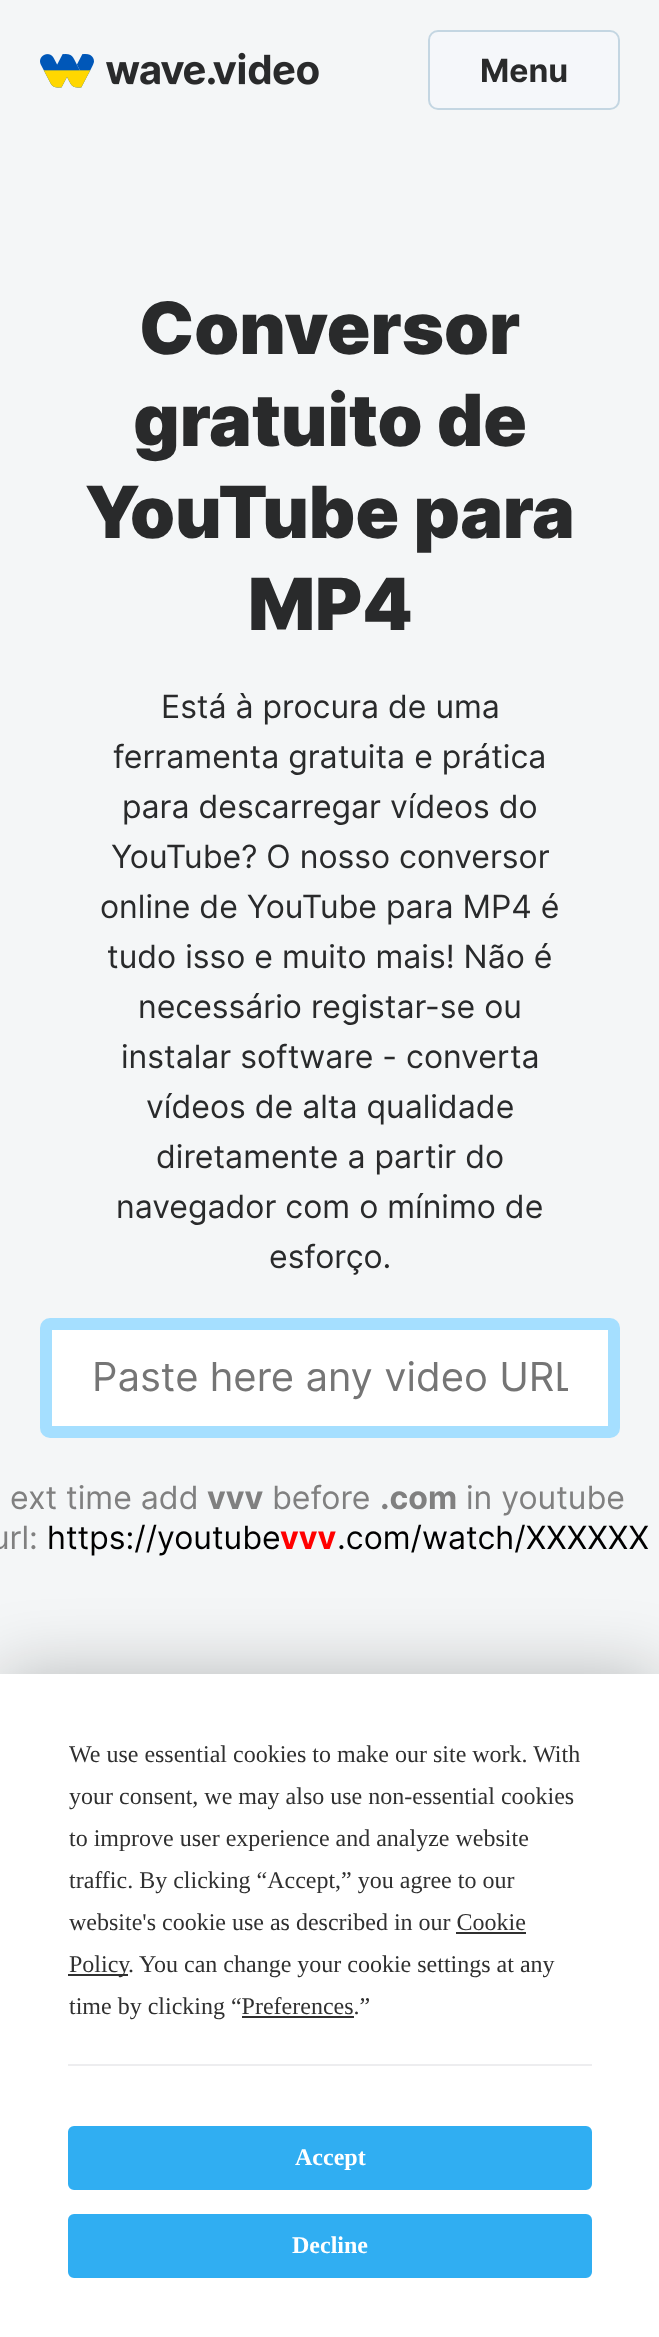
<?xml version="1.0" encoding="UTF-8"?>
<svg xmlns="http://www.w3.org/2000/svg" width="659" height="2337">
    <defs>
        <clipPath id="clip1"><rect x="92" y="1354" width="476" height="48"/></clipPath>
        <filter id="blur1" x="-50%" y="-200%" width="200%" height="500%"><feGaussianBlur stdDeviation="35"/></filter>
    </defs>
    <rect width="100%" height="100%" fill="#F4F6F7"/>
    <image x="40" y="52" width="279" height="36" href="img_01.png"/>
    <rect x="429" y="31" width="190" height="78" rx="9" fill="#F5F7FA" stroke="#C4D6E2" stroke-width="2"/>
    <text x="480" y="82" font-family="Inter" font-size="32" font-weight="700" fill="#292A2B">Menu</text>
    <text x="139" y="354" font-family="Inter" font-size="72" font-weight="900" fill="#292A2B">Conversor</text>
    <text x="133" y="446" font-family="Inter" font-size="72" font-weight="900" fill="#292A2B">gratuito de</text>
    <text x="85" y="538" font-family="Inter" font-size="72" font-weight="900" fill="#292A2B">YouTube para</text>
    <text x="248" y="630" font-family="Inter" font-size="72" font-weight="900" fill="#292A2B">MP4</text>
    <text x="161" y="718" font-family="Inter" font-size="32" fill="#292A2B">Está à procura de uma</text>
    <text x="113" y="768" font-family="Inter" font-size="32" fill="#292A2B">ferramenta gratuita e prática</text>
    <text x="122" y="818" font-family="Inter" font-size="32" fill="#292A2B">para descarregar vídeos do</text>
    <text x="111" y="868" font-family="Inter" font-size="32" fill="#292A2B">YouTube? O nosso conversor</text>
    <text x="100" y="918" font-family="Inter" font-size="32" fill="#292A2B">online de YouTube para MP4 é</text>
    <text x="107" y="968" font-family="Inter" font-size="32" fill="#292A2B">tudo isso e muito mais! Não é</text>
    <text x="138" y="1018" font-family="Inter" font-size="32" fill="#292A2B">necessário registar-se ou</text>
    <text x="121" y="1068" font-family="Inter" font-size="32" fill="#292A2B">instalar software - converta</text>
    <text x="146" y="1118" font-family="Inter" font-size="32" fill="#292A2B">vídeos de alta qualidade</text>
    <text x="156" y="1168" font-family="Inter" font-size="32" fill="#292A2B">diretamente a partir do</text>
    <text x="116" y="1218" font-family="Inter" font-size="32" fill="#292A2B">navegador com o mínimo de</text>
    <text x="269" y="1268" font-family="Inter" font-size="32" fill="#292A2B">esforço.</text>
    <rect x="46" y="1324" width="568" height="108" rx="4" fill="#FFFFFF" stroke="#A5DFFF" stroke-width="12"/>
    <g clip-path="url(#clip1)">
        <text x="92" y="1391" font-family="Inter" font-size="40" fill="#757575">Paste here any video URL</text>
    </g>
    <text x="10" y="1509" font-family="Inter" font-size="32" fill="#808080">ext time add</text>
    <text x="207" y="1509" font-family="Inter" font-size="32" font-weight="700" fill="#808080">vvv</text>
    <text x="272" y="1509" font-family="Inter" font-size="32" fill="#808080">before</text>
    <text x="380" y="1509" font-family="Inter" font-size="32" font-weight="700" fill="#808080">.com</text>
    <text x="466" y="1509" font-family="Inter" font-size="32" fill="#808080">in youtube</text>
    <text x="-9" y="1549" font-family="Inter" font-size="32" fill="#808080">url:</text>
    <text x="47" y="1549" font-family="Inter" font-size="32" fill="#000000">https://youtube</text>
    <text x="280" y="1549" font-family="Inter" font-size="32" font-weight="700" fill="#FF0000">vvv</text>
    <text x="337" y="1549" font-family="Inter" font-size="32" fill="#000000">.com/watch/XXXXXX</text>
    <rect x="0" y="1674" width="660" height="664" fill="#000000" fill-opacity="0.25" filter="url(#blur1)"/>
    <rect x="0" y="1674" width="659" height="663" fill="#FFFFFF"/>
    <text font-family="Liberation Serif" font-size="24" fill="#303030">
        <tspan x="69" y="1762">We use essential cookies to make our site work. With</tspan>
        <tspan x="69" y="1804">your consent, we may also use non-essential cookies</tspan>
        <tspan x="69" y="1846">to improve user experience and analyze website</tspan>
        <tspan x="69" y="1888">traffic. By clicking “Accept,” you agree to our</tspan>
        <tspan x="69" y="1930">website's cookie use as described in our Cookie</tspan>
    </text>
    <rect x="68" y="1974" width="60" height="2" fill="#303030"/>
    <text x="69" y="1972" font-family="Liberation Serif" font-size="24" fill="#303030">Policy</text>
    <rect x="456" y="1932" width="70" height="2" fill="#303030"/>
    <text x="128" y="1972" font-family="Liberation Serif" font-size="24" fill="#303030">. You can change your cookie settings at any</text>
    <text x="69" y="2014" font-family="Liberation Serif" font-size="24" fill="#303030">time by clicking “Preferences.”</text>
    <rect x="242" y="2016" width="112" height="2" fill="#303030"/>
    <rect x="68" y="2064" width="524" height="2" fill="#EDEDEF"/>
    <rect x="69" y="2127" width="522" height="62" rx="5" fill="#30AEF2" stroke="#30AEF2" stroke-width="2"/>
    <text x="295" y="2165" font-family="Liberation Serif" font-size="24" font-weight="700" fill="#FFFFFF">Accept</text>
    <rect x="69" y="2215" width="522" height="62" rx="5" fill="#30AEF2" stroke="#30AEF2" stroke-width="2"/>
    <text x="292" y="2253" font-family="Liberation Serif" font-size="24" font-weight="700" fill="#FFFFFF">Decline</text>
</svg>
